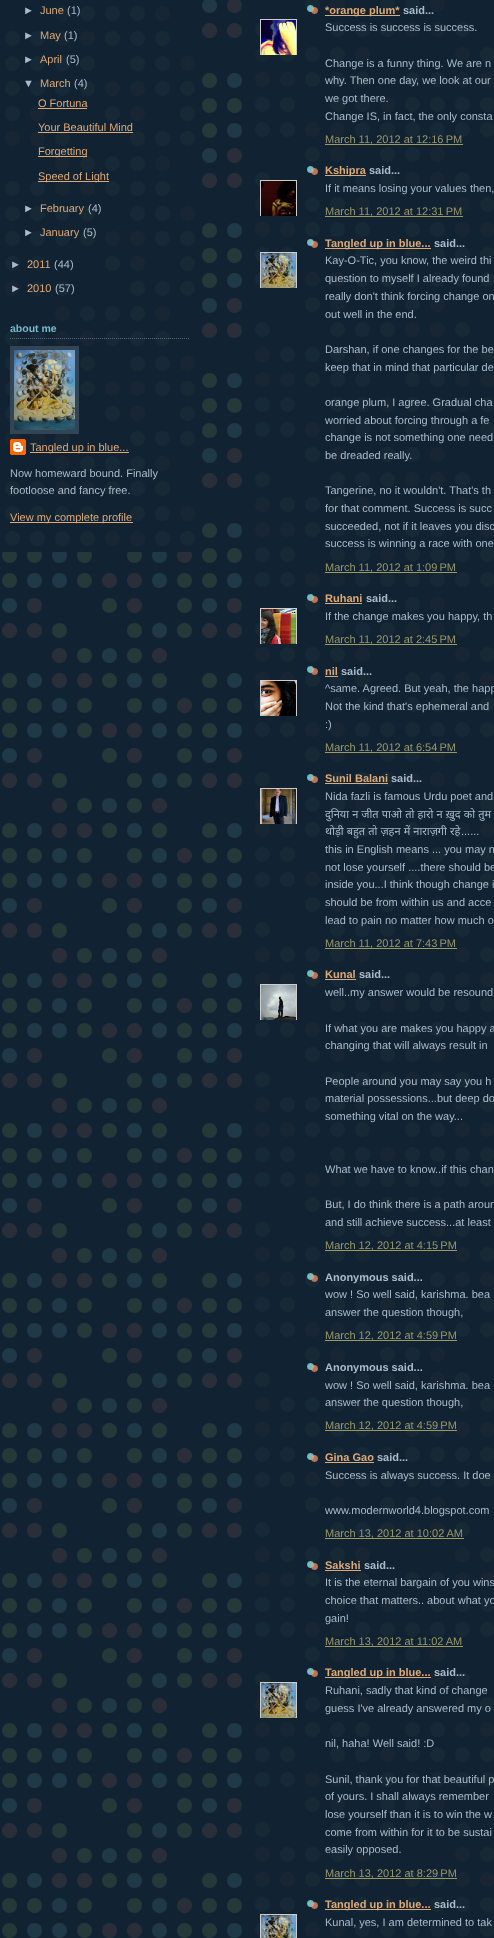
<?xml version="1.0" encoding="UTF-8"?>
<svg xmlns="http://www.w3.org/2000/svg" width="494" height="1938">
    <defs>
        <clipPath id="clip1"><rect x="260" y="19" width="37" height="36"/></clipPath>
        <clipPath id="clip2"><rect x="260" y="180" width="37" height="36"/></clipPath>
        <clipPath id="clip3"><rect x="260" y="252" width="37" height="36"/></clipPath>
        <clipPath id="clip4"><rect x="260" y="608" width="37" height="36"/></clipPath>
        <clipPath id="clip5"><rect x="260" y="680" width="37" height="36"/></clipPath>
        <clipPath id="clip6"><rect x="260" y="788" width="37" height="36"/></clipPath>
        <clipPath id="clip7"><rect x="260" y="984" width="37" height="36"/></clipPath>
        <clipPath id="clip8"><rect x="260" y="1682" width="37" height="36"/></clipPath>
    </defs>
    <rect width="100%" height="100%" fill="#112233"/>
    <image x="2" y="0" width="250" height="1938" href="img_01.png"/>
    <image x="2" y="0" width="193" height="552" href="img_02.png"/>
    <text x="23" y="14" font-family="Liberation Sans" font-size="11" fill="#AABBCC">►</text>
    <text x="40" y="14" font-family="Liberation Sans" font-size="11" fill="#DDAA77">June</text>
    <text x="67" y="14" font-family="Liberation Sans" font-size="11" fill="#AABBCC">(1)</text>
    <text x="23" y="39" font-family="Liberation Sans" font-size="11" fill="#AABBCC">►</text>
    <text x="40" y="39" font-family="Liberation Sans" font-size="11" fill="#DDAA77">May</text>
    <text x="64" y="39" font-family="Liberation Sans" font-size="11" fill="#AABBCC">(1)</text>
    <text x="23" y="63" font-family="Liberation Sans" font-size="11" fill="#AABBCC">►</text>
    <text x="40" y="63" font-family="Liberation Sans" font-size="11" fill="#DDAA77">April</text>
    <text x="66" y="63" font-family="Liberation Sans" font-size="11" fill="#AABBCC">(5)</text>
    <text x="23" y="87" font-family="Liberation Sans" font-size="11" fill="#AABBCC">▼</text>
    <text x="40" y="87" font-family="Liberation Sans" font-size="11" fill="#DDAA77">March</text>
    <text x="74" y="87" font-family="Liberation Sans" font-size="11" fill="#AABBCC">(4)</text>
    <text x="38" y="107" font-family="Liberation Sans" font-size="11" fill="#DDAA77">O Fortuna</text>
    <rect x="38" y="108" width="49" height="1" fill="#DDAA77"/>
    <text x="38" y="131" font-family="Liberation Sans" font-size="11" fill="#DDAA77">Your Beautiful Mind</text>
    <rect x="38" y="132" width="95" height="1" fill="#DDAA77"/>
    <rect x="38" y="156" width="49" height="1" fill="#DDAA77"/>
    <text x="38" y="155" font-family="Liberation Sans" font-size="11" fill="#DDAA77">Forgetting</text>
    <rect x="38" y="181" width="71" height="1" fill="#DDAA77"/>
    <text x="38" y="180" font-family="Liberation Sans" font-size="11" fill="#DDAA77">Speed of Light</text>
    <text x="23" y="212" font-family="Liberation Sans" font-size="11" fill="#AABBCC">►</text>
    <text x="40" y="212" font-family="Liberation Sans" font-size="11" fill="#DDAA77">February</text>
    <text x="88" y="212" font-family="Liberation Sans" font-size="11" fill="#AABBCC">(4)</text>
    <text x="23" y="236" font-family="Liberation Sans" font-size="11" fill="#AABBCC">►</text>
    <text x="40" y="236" font-family="Liberation Sans" font-size="11" fill="#DDAA77">January</text>
    <text x="83" y="236" font-family="Liberation Sans" font-size="11" fill="#AABBCC">(5)</text>
    <text x="10" y="268" font-family="Liberation Sans" font-size="11" fill="#AABBCC">►</text>
    <text x="27" y="268" font-family="Liberation Sans" font-size="11" fill="#DDAA77">2011</text>
    <text x="54" y="268" font-family="Liberation Sans" font-size="11" fill="#AABBCC">(44)</text>
    <text x="10" y="292" font-family="Liberation Sans" font-size="11" fill="#AABBCC">►</text>
    <text x="27" y="292" font-family="Liberation Sans" font-size="11" fill="#DDAA77">2010</text>
    <text x="55" y="292" font-family="Liberation Sans" font-size="11" fill="#AABBCC">(57)</text>
    <path d="M 10 338.5 H 190" fill="none" stroke="#556677" stroke-dasharray="1 1"/>
    <text x="10" y="332" font-family="Liberation Sans" font-size="10.5" font-weight="700" fill="#77BBCC">about me</text>
    <rect x="12" y="348" width="65" height="84" fill="none" stroke="#334455" stroke-width="4"/>
    <image x="14" y="350" width="61" height="80" href="img_03.png"/>
    <image x="10" y="439" width="16" height="16" href="img_04.png"/>
    <rect x="30" y="452" width="99" height="1" fill="#DDAA77"/>
    <text x="30" y="451" font-family="Liberation Sans" font-size="11" fill="#DDAA77">Tangled up in blue...</text>
    <text font-family="Liberation Sans" font-size="11" fill="#AABBCC">
        <tspan x="10" y="477">Now homeward bound. Finally</tspan>
        <tspan x="10" y="494">footloose and fancy free.</tspan>
    </text>
    <rect x="10" y="522" width="123" height="1" fill="#DDAA77"/>
    <text x="10" y="521" font-family="Liberation Sans" font-size="11" fill="#DDAA77">View my complete profile</text>
    <image x="252" y="0" width="242" height="1938" href="img_05.png"/>
    <image x="307" y="5" width="11" height="9" href="img_06.png"/>
    <rect x="325" y="15" width="75" height="1" fill="#DDAA77"/>
    <text x="325" y="14" font-family="Liberation Sans" font-size="11" font-weight="700" fill="#DDAA77">*orange plum*</text>
    <text x="403" y="14" font-family="Liberation Sans" font-size="11" font-weight="700" fill="#AABBCC">said...</text>
    <g clip-path="url(#clip1)">
        <rect x="260.5" y="19.5" width="36" height="36" fill="none" stroke="#CCCCCC"/>
    </g>
    <image x="261" y="20" width="35" height="35" href="img_07.png"/>
    <text x="325" y="31" font-family="Liberation Sans" font-size="11" fill="#AABBCC">Success is success is success.</text>
    <text font-family="Liberation Sans" font-size="11" fill="#AABBCC">
        <tspan x="325" y="67">Change is a funny thing. We are n</tspan>
        <tspan x="325" y="84">why. Then one day, we look at our</tspan>
        <tspan x="325" y="102">we got there.</tspan>
        <tspan x="325" y="120">Change IS, in fact, the only consta</tspan>
    </text>
    <rect x="325" y="144" width="138" height="1" fill="#999966"/>
    <text x="325" y="143" font-family="Liberation Sans" font-size="11" fill="#999966">March 11, 2012 at 12:16 PM</text>
    <image x="307" y="166" width="11" height="9" href="img_08.png"/>
    <rect x="325" y="175" width="41" height="1" fill="#DDAA77"/>
    <text x="325" y="174" font-family="Liberation Sans" font-size="11" font-weight="700" fill="#DDAA77">Kshipra</text>
    <text x="369" y="174" font-family="Liberation Sans" font-size="11" font-weight="700" fill="#AABBCC">said...</text>
    <g clip-path="url(#clip2)">
        <rect x="260.5" y="180.5" width="36" height="36" fill="none" stroke="#CCCCCC"/>
    </g>
    <image x="261" y="181" width="35" height="35" href="img_09.png"/>
    <text x="325" y="192" font-family="Liberation Sans" font-size="11" fill="#AABBCC">If it means losing your values then,</text>
    <rect x="325" y="216" width="138" height="1" fill="#999966"/>
    <text x="325" y="215" font-family="Liberation Sans" font-size="11" fill="#999966">March 11, 2012 at 12:31 PM</text>
    <image x="307" y="239" width="11" height="9" href="img_08.png"/>
    <rect x="325" y="248" width="106" height="1" fill="#DDAA77"/>
    <text x="325" y="247" font-family="Liberation Sans" font-size="11" font-weight="700" fill="#DDAA77">Tangled up in blue...</text>
    <text x="434" y="247" font-family="Liberation Sans" font-size="11" font-weight="700" fill="#AABBCC">said...</text>
    <g clip-path="url(#clip3)">
        <rect x="260.5" y="252.5" width="36" height="36" fill="none" stroke="#CCCCCC"/>
    </g>
    <image x="261" y="253" width="35" height="35" href="img_10.png"/>
    <text font-family="Liberation Sans" font-size="11" fill="#AABBCC">
        <tspan x="325" y="264">Kay-O-Tic, you know, the weird thi</tspan>
        <tspan x="325" y="282">question to myself I already found</tspan>
        <tspan x="325" y="300">really don't think forcing change on</tspan>
        <tspan x="325" y="318">out well in the end.</tspan>
    </text>
    <text font-family="Liberation Sans" font-size="11" fill="#AABBCC">
        <tspan x="325" y="353">Darshan, if one changes for the be</tspan>
        <tspan x="325" y="371">keep that in mind that particular de</tspan>
    </text>
    <text font-family="Liberation Sans" font-size="11" fill="#AABBCC">
        <tspan x="325" y="406">orange plum, I agree. Gradual cha</tspan>
        <tspan x="325" y="424">worried about forcing through a fe</tspan>
        <tspan x="325" y="441">change is not something one need</tspan>
        <tspan x="325" y="459">be dreaded really.</tspan>
    </text>
    <text font-family="Liberation Sans" font-size="11" fill="#AABBCC">
        <tspan x="325" y="494">Tangerine, no it wouldn't. That's th</tspan>
        <tspan x="325" y="512">for that comment. Success is succ</tspan>
        <tspan x="325" y="530">succeeded, not if it leaves you disc</tspan>
        <tspan x="325" y="547">success is winning a race with one</tspan>
    </text>
    <rect x="325" y="572" width="132" height="1" fill="#999966"/>
    <text x="325" y="571" font-family="Liberation Sans" font-size="11" fill="#999966">March 11, 2012 at 1:09 PM</text>
    <image x="307" y="594" width="11" height="9" href="img_11.png"/>
    <text x="325" y="602" font-family="Liberation Sans" font-size="11" font-weight="700" fill="#DDAA77">Ruhani</text>
    <rect x="325" y="603" width="37" height="1" fill="#DDAA77"/>
    <text x="366" y="602" font-family="Liberation Sans" font-size="11" font-weight="700" fill="#AABBCC">said...</text>
    <g clip-path="url(#clip4)">
        <rect x="260.5" y="608.5" width="36" height="36" fill="none" stroke="#CCCCCC"/>
    </g>
    <image x="261" y="609" width="35" height="35" href="img_12.png"/>
    <text x="325" y="620" font-family="Liberation Sans" font-size="11" fill="#AABBCC">If the change makes you happy, th</text>
    <rect x="325" y="644" width="132" height="1" fill="#999966"/>
    <text x="325" y="643" font-family="Liberation Sans" font-size="11" fill="#999966">March 11, 2012 at 2:45 PM</text>
    <image x="307" y="666" width="11" height="9" href="img_13.png"/>
    <text x="325" y="675" font-family="Liberation Sans" font-size="11" font-weight="700" fill="#DDAA77">nil</text>
    <rect x="325" y="676" width="13" height="1" fill="#DDAA77"/>
    <text x="341" y="675" font-family="Liberation Sans" font-size="11" font-weight="700" fill="#AABBCC">said...</text>
    <g clip-path="url(#clip5)">
        <rect x="260.5" y="680.5" width="36" height="36" fill="none" stroke="#CCCCCC"/>
    </g>
    <image x="261" y="681" width="35" height="35" href="img_14.png"/>
    <text font-family="Liberation Sans" font-size="11" fill="#AABBCC">
        <tspan x="325" y="692">^same. Agreed. But yeah, the happ</tspan>
        <tspan x="325" y="710">Not the kind that's ephemeral and</tspan>
        <tspan x="325" y="728">:)</tspan>
    </text>
    <rect x="325" y="752" width="132" height="1" fill="#999966"/>
    <text x="325" y="751" font-family="Liberation Sans" font-size="11" fill="#999966">March 11, 2012 at 6:54 PM</text>
    <image x="307" y="774" width="11" height="9" href="img_08.png"/>
    <text x="325" y="782" font-family="Liberation Sans" font-size="11" font-weight="700" fill="#DDAA77">Sunil Balani</text>
    <rect x="325" y="783" width="63" height="1" fill="#DDAA77"/>
    <text x="391" y="782" font-family="Liberation Sans" font-size="11" font-weight="700" fill="#AABBCC">said...</text>
    <g clip-path="url(#clip6)">
        <rect x="260.5" y="788.5" width="36" height="36" fill="none" stroke="#CCCCCC"/>
    </g>
    <image x="261" y="789" width="35" height="35" href="img_15.png"/>
    <text x="325" y="800" font-family="Liberation Sans" font-size="11" fill="#AABBCC">Nida fazli is famous Urdu poet and</text>
    <text font-family="Noto Sans" font-size="11" fill="#AABBCC">
        <tspan x="325" y="818" word-spacing="0.25">दुनिया न जीत पाओ तो हारो न ख़ुद को तुम</tspan>
        <tspan x="325" y="835" word-spacing="0.25">थोड़ी बहुत तो ज़हन में नाराज़गी रहे</tspan>
    </text>
    <text x="461" y="835" font-family="Liberation Sans" font-size="11" fill="#AABBCC">......</text>
    <text font-family="Liberation Sans" font-size="11" fill="#AABBCC">
        <tspan x="325" y="853">this in English means ... you may n</tspan>
        <tspan x="325" y="871">not lose yourself ....there should be</tspan>
        <tspan x="325" y="888">inside you...I think though change i</tspan>
        <tspan x="325" y="906">should be from within us and acce</tspan>
        <tspan x="325" y="924">lead to pain no matter how much o</tspan>
    </text>
    <rect x="325" y="948" width="132" height="1" fill="#999966"/>
    <text x="325" y="947" font-family="Liberation Sans" font-size="11" fill="#999966">March 11, 2012 at 7:43 PM</text>
    <image x="307" y="970" width="11" height="9" href="img_11.png"/>
    <text x="325" y="978" font-family="Liberation Sans" font-size="11" font-weight="700" fill="#DDAA77">Kunal</text>
    <rect x="325" y="979" width="31" height="1" fill="#DDAA77"/>
    <text x="359" y="978" font-family="Liberation Sans" font-size="11" font-weight="700" fill="#AABBCC">said...</text>
    <g clip-path="url(#clip7)">
        <rect x="260.5" y="984.5" width="36" height="36" fill="none" stroke="#CCCCCC"/>
    </g>
    <image x="261" y="985" width="35" height="35" href="img_16.png"/>
    <text x="325" y="996" font-family="Liberation Sans" font-size="11" fill="#AABBCC">well..my answer would be resound</text>
    <text font-family="Liberation Sans" font-size="11" fill="#AABBCC">
        <tspan x="325" y="1032">If what you are makes you happy a</tspan>
        <tspan x="325" y="1049">changing that will always result in</tspan>
    </text>
    <text font-family="Liberation Sans" font-size="11" fill="#AABBCC">
        <tspan x="325" y="1085">People around you may say you h</tspan>
        <tspan x="325" y="1102">material possessions...but deep do</tspan>
        <tspan x="325" y="1120">something vital on the way...</tspan>
    </text>
    <text x="325" y="1173" font-family="Liberation Sans" font-size="11" fill="#AABBCC">What we have to know..if this chan</text>
    <text font-family="Liberation Sans" font-size="11" fill="#AABBCC">
        <tspan x="325" y="1208">But, I do think there is a path aroun</tspan>
        <tspan x="325" y="1226">and still achieve success...at least</tspan>
    </text>
    <rect x="325" y="1250" width="132" height="1" fill="#999966"/>
    <text x="325" y="1249" font-family="Liberation Sans" font-size="11" fill="#999966">March 12, 2012 at 4:15 PM</text>
    <image x="307" y="1273" width="11" height="9" href="img_17.png"/>
    <text x="325" y="1281" font-family="Liberation Sans" font-size="11" font-weight="700" fill="#AABBCC">Anonymous said...</text>
    <text font-family="Liberation Sans" font-size="11" fill="#AABBCC">
        <tspan x="325" y="1298">wow ! So well said, karishma. bea</tspan>
        <tspan x="325" y="1316">answer the question though,</tspan>
    </text>
    <rect x="325" y="1340" width="132" height="1" fill="#999966"/>
    <text x="325" y="1339" font-family="Liberation Sans" font-size="11" fill="#999966">March 12, 2012 at 4:59 PM</text>
    <image x="307" y="1363" width="11" height="9" href="img_08.png"/>
    <text x="325" y="1371" font-family="Liberation Sans" font-size="11" font-weight="700" fill="#AABBCC">Anonymous said...</text>
    <text font-family="Liberation Sans" font-size="11" fill="#AABBCC">
        <tspan x="325" y="1389">wow ! So well said, karishma. bea</tspan>
        <tspan x="325" y="1406">answer the question though,</tspan>
    </text>
    <rect x="325" y="1430" width="132" height="1" fill="#999966"/>
    <text x="325" y="1429" font-family="Liberation Sans" font-size="11" fill="#999966">March 12, 2012 at 4:59 PM</text>
    <image x="307" y="1453" width="11" height="9" href="img_08.png"/>
    <text x="325" y="1461" font-family="Liberation Sans" font-size="11" font-weight="700" fill="#DDAA77">Gina Gao</text>
    <rect x="325" y="1462" width="49" height="1" fill="#DDAA77"/>
    <text x="377" y="1461" font-family="Liberation Sans" font-size="11" font-weight="700" fill="#AABBCC">said...</text>
    <text x="325" y="1479" font-family="Liberation Sans" font-size="11" fill="#AABBCC">Success is always success. It doe</text>
    <text x="325" y="1514" font-family="Liberation Sans" font-size="11" fill="#AABBCC">www.modernworld4.blogspot.com</text>
    <rect x="325" y="1538" width="139" height="1" fill="#999966"/>
    <text x="325" y="1537" font-family="Liberation Sans" font-size="11" fill="#999966">March 13, 2012 at 10:02 AM</text>
    <image x="307" y="1561" width="11" height="9" href="img_18.png"/>
    <text x="325" y="1569" font-family="Liberation Sans" font-size="11" font-weight="700" fill="#DDAA77">Sakshi</text>
    <rect x="325" y="1570" width="36" height="1" fill="#DDAA77"/>
    <text x="364" y="1569" font-family="Liberation Sans" font-size="11" font-weight="700" fill="#AABBCC">said...</text>
    <text font-family="Liberation Sans" font-size="11" fill="#AABBCC">
        <tspan x="325" y="1586">It is the eternal bargain of you wins</tspan>
        <tspan x="325" y="1604">choice that matters.. about what yo</tspan>
        <tspan x="325" y="1622">gain!</tspan>
    </text>
    <rect x="325" y="1646" width="138" height="1" fill="#999966"/>
    <text x="325" y="1645" font-family="Liberation Sans" font-size="11" fill="#999966">March 13, 2012 at 11:02 AM</text>
    <image x="307" y="1668" width="11" height="9" href="img_08.png"/>
    <rect x="325" y="1677" width="106" height="1" fill="#DDAA77"/>
    <text x="325" y="1676" font-family="Liberation Sans" font-size="11" font-weight="700" fill="#DDAA77">Tangled up in blue...</text>
    <text x="434" y="1676" font-family="Liberation Sans" font-size="11" font-weight="700" fill="#AABBCC">said...</text>
    <g clip-path="url(#clip8)">
        <rect x="260.5" y="1682.5" width="36" height="36" fill="none" stroke="#CCCCCC"/>
    </g>
    <image x="261" y="1683" width="35" height="35" href="img_10.png"/>
    <text font-family="Liberation Sans" font-size="11" fill="#AABBCC">
        <tspan x="325" y="1694">Ruhani, sadly that kind of change</tspan>
        <tspan x="325" y="1712">guess I've already answered my o</tspan>
    </text>
    <text x="325" y="1747" font-family="Liberation Sans" font-size="11" fill="#AABBCC">nil, haha! Well said! :D</text>
    <text font-family="Liberation Sans" font-size="11" fill="#AABBCC">
        <tspan x="325" y="1783">Sunil, thank you for that beautiful p</tspan>
        <tspan x="325" y="1800">of yours. I shall always remember</tspan>
        <tspan x="325" y="1818">lose yourself than it is to win the w</tspan>
        <tspan x="325" y="1836">come from within for it to be sustai</tspan>
        <tspan x="325" y="1853">easily opposed.</tspan>
    </text>
    <rect x="325" y="1878" width="132" height="1" fill="#999966"/>
    <text x="325" y="1877" font-family="Liberation Sans" font-size="11" fill="#999966">March 13, 2012 at 8:29 PM</text>
    <image x="307" y="1900" width="11" height="9" href="img_08.png"/>
    <rect x="325" y="1909" width="106" height="1" fill="#DDAA77"/>
    <text x="325" y="1908" font-family="Liberation Sans" font-size="11" font-weight="700" fill="#DDAA77">Tangled up in blue...</text>
    <text x="434" y="1908" font-family="Liberation Sans" font-size="11" font-weight="700" fill="#AABBCC">said...</text>
    <rect x="260.5" y="1914.5" width="36" height="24" fill="none" stroke="#CCCCCC"/>
    <image x="261" y="1915" width="35" height="23" href="img_19.png"/>
    <text x="325" y="1926" font-family="Liberation Sans" font-size="11" fill="#AABBCC">Kunal, yes, I am determined to tak</text>
</svg>
